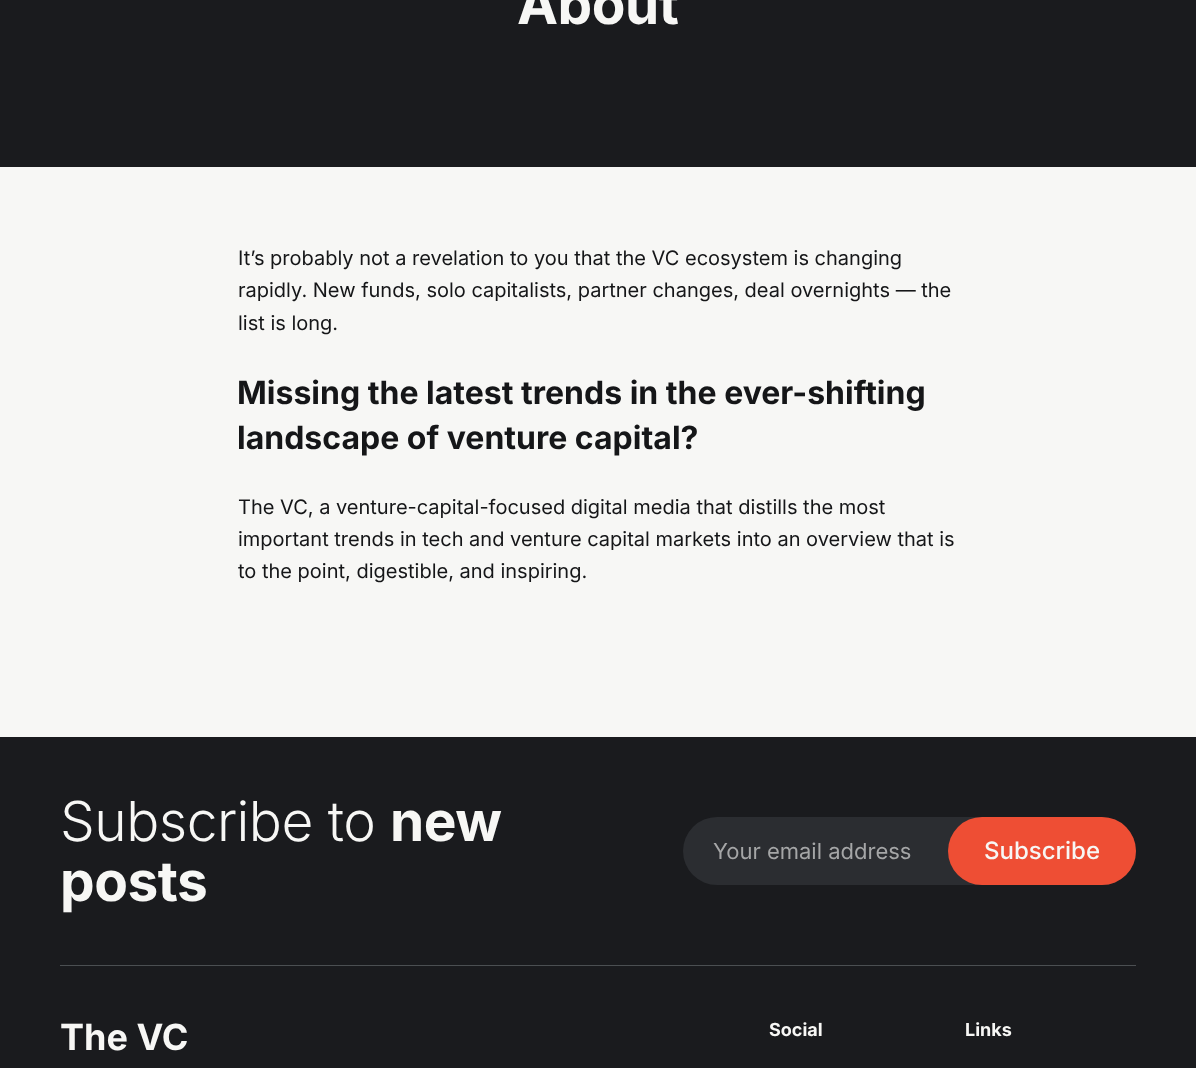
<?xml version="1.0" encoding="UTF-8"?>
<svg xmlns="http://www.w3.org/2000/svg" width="1196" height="1068">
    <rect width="100%" height="100%" fill="#F7F7F5"/>
    <rect x="0" y="0" width="1196" height="167" fill="#1A1B1E"/>
    <text x="517" y="24" font-family="Inter" font-size="55" font-weight="700" letter-spacing="-0.5" fill="#F7F7F5">About</text>
    <text font-family="Inter" font-size="20" fill="#151618">
        <tspan x="238" y="265">It’s probably not a revelation to you that the VC ecosystem is changing</tspan>
        <tspan x="238" y="297">rapidly. New funds, solo capitalists, partner changes, deal overnights — the</tspan>
        <tspan x="238" y="330">list is long.</tspan>
    </text>
    <text font-family="Inter" font-size="32" font-weight="700" fill="#151618">
        <tspan x="237" y="404">Missing the latest trends in the ever-shifting</tspan>
        <tspan x="237" y="449">landscape of venture capital?</tspan>
    </text>
    <text font-family="Inter" font-size="20" fill="#151618">
        <tspan x="238" y="514">The VC, a venture-capital-focused digital media that distills the most</tspan>
        <tspan x="238" y="546">important trends in tech and venture capital markets into an overview that is</tspan>
        <tspan x="238" y="578">to the point, digestible, and inspiring.</tspan>
    </text>
    <rect x="0" y="737" width="1196" height="331" fill="#1A1B1E"/>
    <text x="60" y="841" font-family="Inter" font-size="55" font-weight="300" letter-spacing="-0.5" fill="#F7F7F5">Subscribe to</text>
    <text x="390" y="841" font-family="Inter" font-size="55" font-weight="700" letter-spacing="-0.5" fill="#F7F7F5">new</text>
    <text x="60" y="901" font-family="Inter" font-size="55" font-weight="700" letter-spacing="-0.5" fill="#F7F7F5">posts</text>
    <rect x="683" y="817" width="453" height="68" rx="34" fill="#2B2D31"/>
    <text x="713" y="859" font-family="Inter" font-size="22" fill="#A5A6A7">Your email address</text>
    <rect x="948" y="817" width="188" height="68" rx="34" fill="#EE4E34"/>
    <text x="984" y="859" font-family="Inter" font-size="24" font-weight="500" fill="#F7F7F5">Subscribe</text>
    <rect x="60" y="965" width="1076" height="1" fill="#4B4F52"/>
    <text x="60" y="1050" font-family="Inter" font-size="36" font-weight="700" fill="#F7F7F5">The VC</text>
    <text x="769" y="1036" font-family="Inter" font-size="18" font-weight="700" fill="#F7F7F5">Social</text>
    <text x="965" y="1036" font-family="Inter" font-size="18" font-weight="700" fill="#F7F7F5">Links</text>
</svg>
